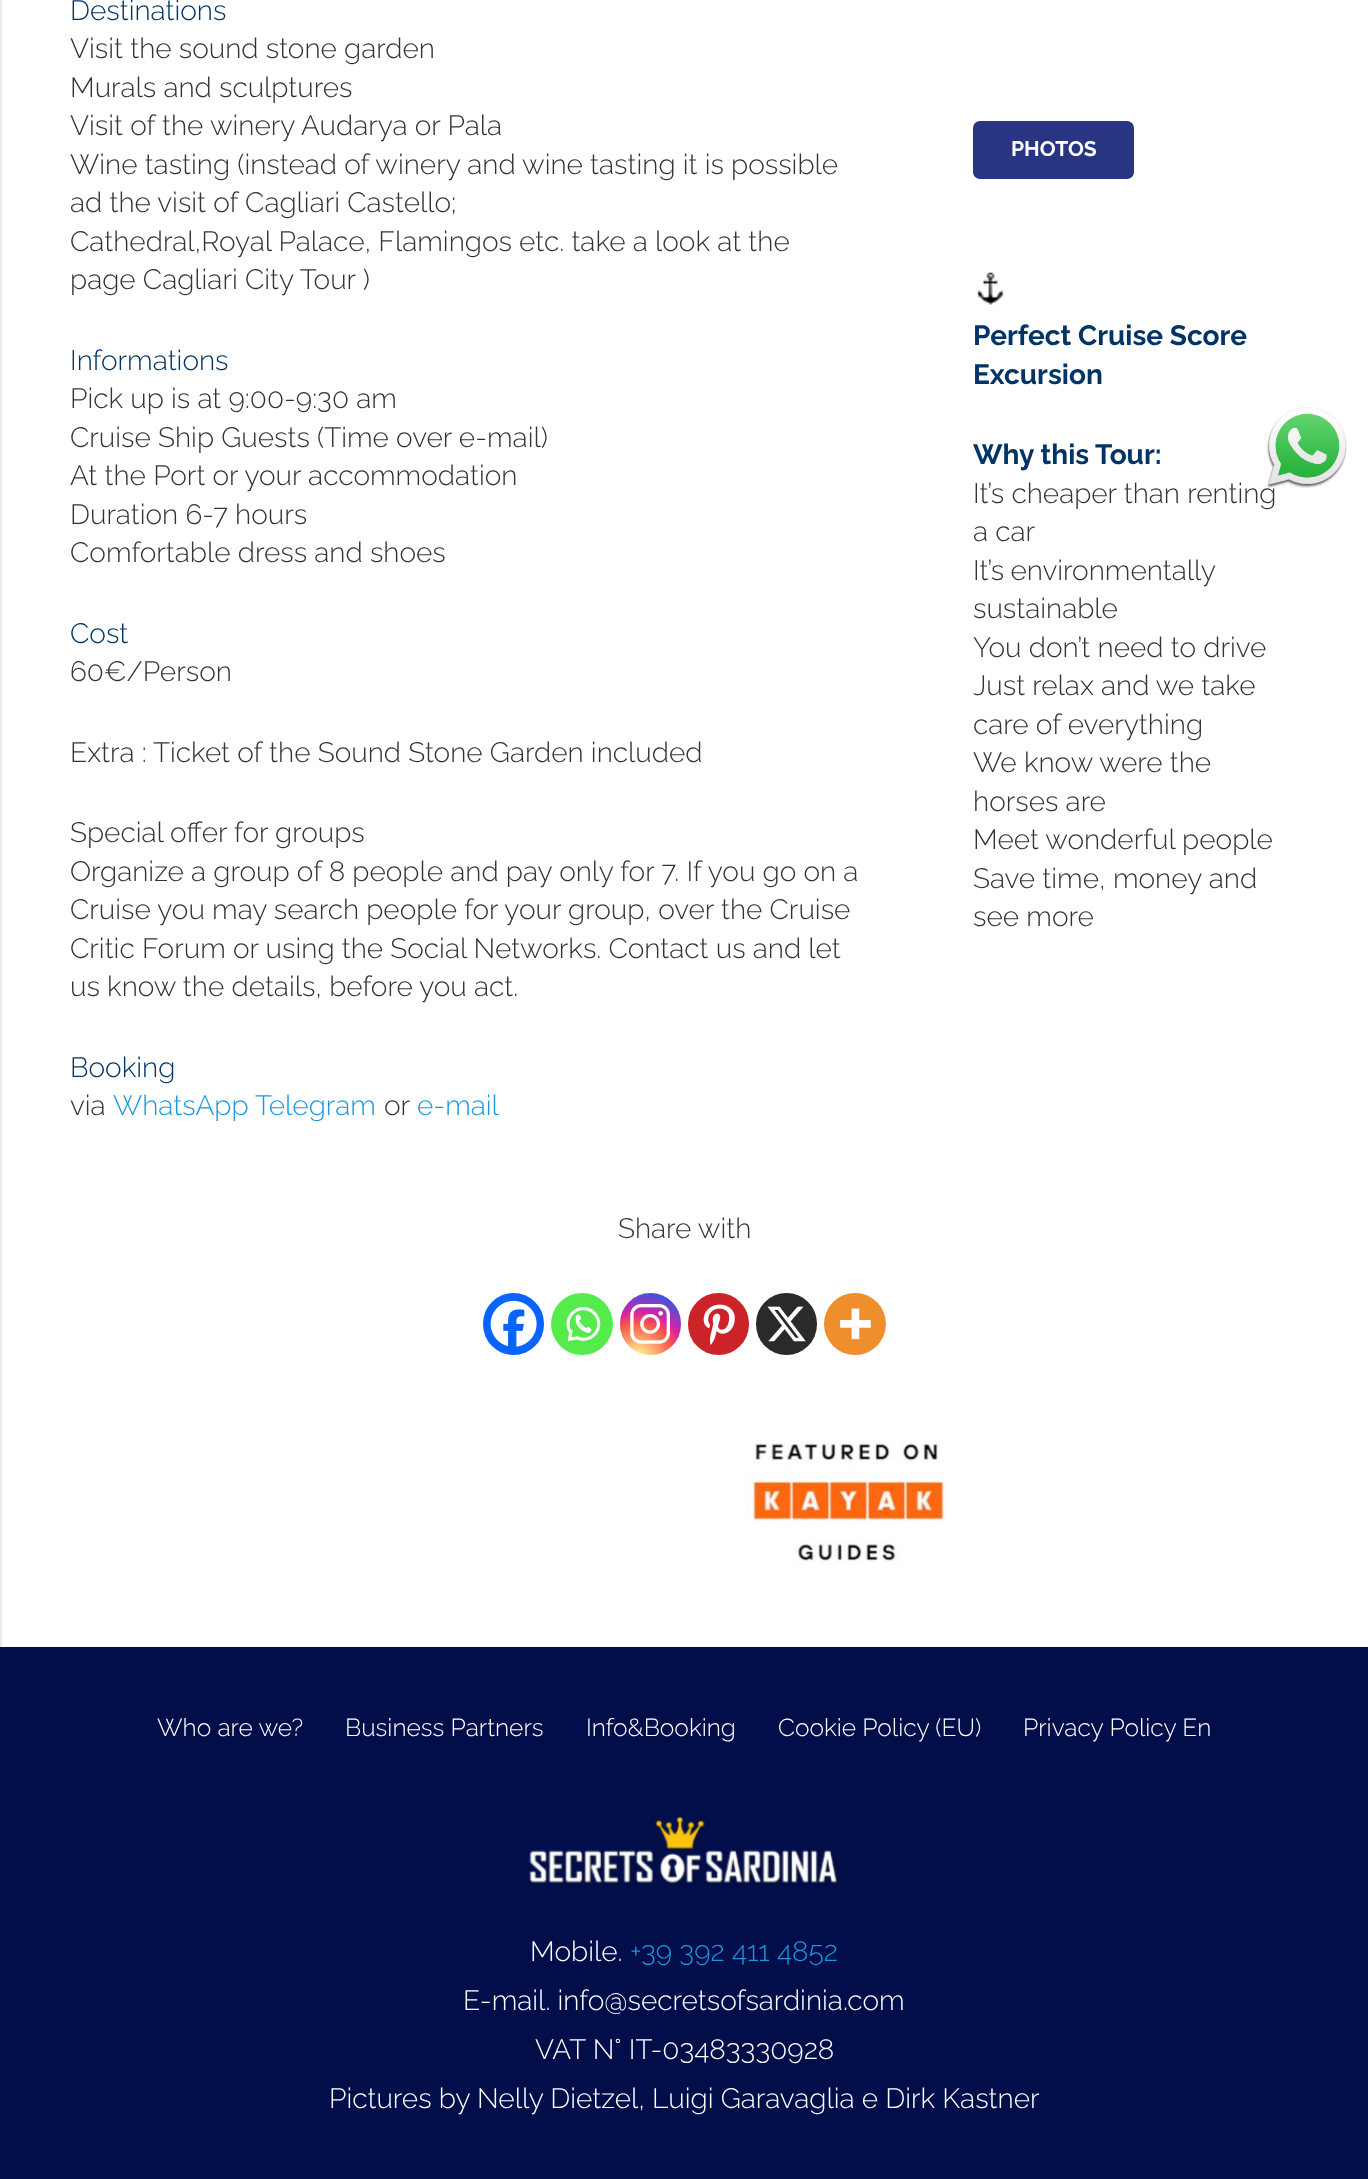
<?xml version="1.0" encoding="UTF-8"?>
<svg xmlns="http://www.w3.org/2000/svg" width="1368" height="2179">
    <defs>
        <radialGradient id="g1" gradientUnits="userSpaceOnUse" cx="638" cy="1359" r="78"><stop offset="0" stop-color="#FDF497"/><stop offset="0.05" stop-color="#FDF497"/><stop offset="0.45" stop-color="#FD5949"/><stop offset="0.6" stop-color="#D6249F"/><stop offset="0.9" stop-color="#285AEB"/></radialGradient>
    </defs>
    <rect width="100%" height="100%" fill="#FFFFFF"/>
    <rect x="0" y="1647" width="1368" height="532" fill="#010E4A"/>
    <path d="M -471 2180 V 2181 H 2 V 0 H 0 V 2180 Z" fill="#000000" fill-opacity="0.08"/>
    <text x="973" y="503" font-family="Raleway" font-size="28" font-weight="300" fill="#333333">It’s cheaper than renting</text>
    <image x="1267" y="407" width="80" height="82" href="img_01.png"/>
    <text x="70" y="20" font-family="Raleway" font-size="28" font-weight="300" fill="#003366">Destinations</text>
    <text font-family="Raleway" font-size="28" font-weight="300" fill="#333333">
        <tspan x="70" y="58">Visit the sound stone garden</tspan>
        <tspan x="70" y="97">Murals and sculptures</tspan>
        <tspan x="70" y="135">Visit of the winery Audarya or Pala</tspan>
        <tspan x="70" y="174">Wine tasting (instead of winery and wine tasting it is possible</tspan>
        <tspan x="70" y="212">ad the visit of Cagliari Castello;</tspan>
        <tspan x="70" y="251">Cathedral,Royal Palace, Flamingos etc. take a look at the</tspan>
        <tspan x="70" y="289">page Cagliari City Tour )</tspan>
    </text>
    <text x="70" y="370" font-family="Raleway" font-size="28" font-weight="300" fill="#003366">Informations</text>
    <text font-family="Raleway" font-size="28" font-weight="300" fill="#333333">
        <tspan x="70" y="408">Pick up is at 9:00-9:30 am</tspan>
        <tspan x="70" y="447">Cruise Ship Guests (Time over e-mail)</tspan>
        <tspan x="70" y="485">At the Port or your accommodation</tspan>
        <tspan x="70" y="524">Duration 6-7 hours</tspan>
        <tspan x="70" y="562">Comfortable dress and shoes</tspan>
    </text>
    <text x="70" y="643" font-family="Raleway" font-size="28" font-weight="300" fill="#003366">Cost</text>
    <text x="70" y="681" font-family="Raleway" font-size="28" font-weight="300" fill="#333333">60€/Person</text>
    <text x="70" y="762" font-family="Raleway" font-size="28" font-weight="300" fill="#333333">Extra : Ticket of the Sound Stone Garden included</text>
    <text font-family="Raleway" font-size="28" font-weight="300" fill="#333333">
        <tspan x="70" y="842">Special offer for groups</tspan>
        <tspan x="70" y="881">Organize a group of 8 people and pay only for 7. If you go on a</tspan>
        <tspan x="70" y="919">Cruise you may search people for your group, over the Cruise</tspan>
        <tspan x="70" y="958">Critic Forum or using the Social Networks. Contact us and let</tspan>
        <tspan x="70" y="996">us know the details, before you act.</tspan>
    </text>
    <text x="70" y="1077" font-family="Raleway" font-size="28" font-weight="300" fill="#003366">Booking</text>
    <text x="70" y="1115" font-family="Raleway" font-size="28" font-weight="300" fill="#333333">via</text>
    <text x="113" y="1115" font-family="Raleway" font-size="28" font-weight="300" fill="#1B98E0">WhatsApp Telegram</text>
    <text x="384" y="1115" font-family="Raleway" font-size="28" font-weight="300" fill="#333333">or</text>
    <text x="417" y="1115" font-family="Raleway" font-size="28" font-weight="300" fill="#1B98E0">e-mail</text>
    <rect x="973" y="121" width="161" height="58" rx="7" fill="#283583"/>
    <text x="1011" y="156" font-family="Raleway" font-size="21" font-weight="700" fill="#FFFFFF">PHOTOS</text>
    <image x="976" y="272" width="28" height="33" href="img_02.png"/>
    <text font-family="Raleway" font-size="28" font-weight="700" fill="#003366">
        <tspan x="973" y="345">Perfect Cruise Score</tspan>
        <tspan x="973" y="384">Excursion</tspan>
    </text>
    <text x="973" y="464" font-family="Raleway" font-size="28" font-weight="700" fill="#003366">Why this Tour:</text>
    <text font-family="Raleway" font-size="28" font-weight="300" fill="#333333">
        <tspan x="973" y="541">a car</tspan>
        <tspan x="973" y="580" word-spacing="-1">It’s environmentally</tspan>
        <tspan x="973" y="618">sustainable</tspan>
        <tspan x="973" y="657">You don’t need to drive</tspan>
        <tspan x="973" y="695">Just relax and we take</tspan>
        <tspan x="973" y="734">care of everything</tspan>
        <tspan x="973" y="772">We know were the</tspan>
        <tspan x="973" y="811">horses are</tspan>
        <tspan x="973" y="849">Meet wonderful people</tspan>
        <tspan x="973" y="888">Save time, money and</tspan>
        <tspan x="973" y="926">see more</tspan>
    </text>
    <text x="618" y="1238" font-family="Raleway" font-size="28" font-weight="300" fill="#333333">Share with</text>
    <rect x="483" y="1293" width="61" height="62" rx="30.5" fill="#0765FE"/>
    <image x="490" y="1300" width="47" height="47" href="img_03.png"/>
    <circle cx="582" cy="1324" r="31" fill="#55EB4C"/>
    <image x="566" y="1307" width="35" height="34" href="img_04.png"/>
    <rect x="620" y="1293" width="61" height="62" rx="30.5" fill="url(#g1)"/>
    <image x="630" y="1304" width="40" height="40" href="img_05.png"/>
    <rect x="688" y="1293" width="61" height="62" rx="30.5" fill="#CC2329"/>
    <image x="703" y="1304" width="32" height="41" href="img_06.png"/>
    <rect x="756" y="1293" width="61" height="62" rx="30.5" fill="#2A2A2A"/>
    <image x="767" y="1306" width="39" height="36" href="img_07.png"/>
    <circle cx="855" cy="1324" r="31" fill="#EE8E2D"/>
    <image x="840" y="1308" width="31" height="32" href="img_08.png"/>
    <image x="745" y="1441" width="203" height="123" href="img_09.png"/>
    <text x="157" y="1736" font-family="Raleway" font-size="24.5" font-weight="300" fill="#FFFFFF">Who are we?</text>
    <text x="345" y="1736" font-family="Raleway" font-size="24.5" font-weight="300" fill="#FFFFFF">Business Partners</text>
    <text x="586" y="1736" font-family="Raleway" font-size="24.5" font-weight="300" fill="#FFFFFF">Info&amp;Booking</text>
    <text x="778" y="1736" font-family="Raleway" font-size="24.5" font-weight="300" fill="#FFFFFF">Cookie Policy (EU)</text>
    <text x="1023" y="1736" font-family="Raleway" font-size="24.5" font-weight="300" fill="#FFFFFF">Privacy Policy En</text>
    <image x="529" y="1816" width="310" height="69" href="img_10.png"/>
    <text x="530" y="1961" font-family="Raleway" font-size="28" font-weight="300" fill="#FFFFFF">Mobile.</text>
    <text x="630" y="1961" font-family="Raleway" font-size="28" font-weight="300" fill="#1B98E0">+39 392 411 4852</text>
    <text x="463" y="2010" font-family="Raleway" font-size="28" font-weight="300" fill="#FFFFFF">E-mail. info@secretsofsardinia.com</text>
    <text x="535" y="2059" font-family="Raleway" font-size="28" font-weight="300" fill="#FFFFFF">VAT N° IT-03483330928</text>
    <text x="329" y="2108" font-family="Raleway" font-size="28" font-weight="300" fill="#FFFFFF">Pictures by Nelly Dietzel, Luigi Garavaglia e Dirk Kastner</text>
</svg>
